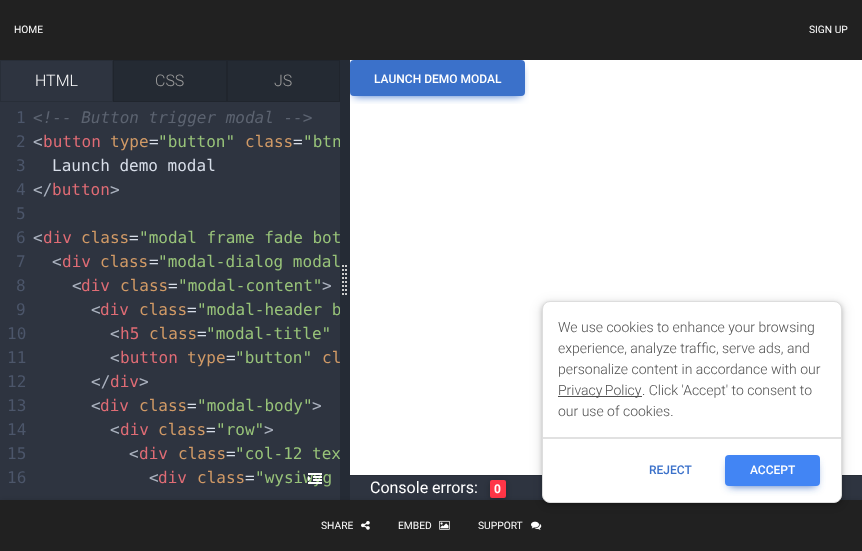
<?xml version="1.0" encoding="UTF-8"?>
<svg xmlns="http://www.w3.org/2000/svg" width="862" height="551">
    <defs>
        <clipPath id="clip1"><rect x="0" y="102" width="340" height="398"/></clipPath>
        <filter id="blur1" x="-50%" y="-200%" width="200%" height="500%"><feGaussianBlur stdDeviation="5"/></filter>
        <filter id="blur2" x="-50%" y="-200%" width="200%" height="500%"><feGaussianBlur stdDeviation="2.5"/></filter>
        <filter id="blur3" x="-50%" y="-200%" width="200%" height="500%"><feGaussianBlur stdDeviation="4.5"/></filter>
    </defs>
    <rect width="100%" height="100%" fill="#FFFFFF"/>
    <rect x="0" y="0" width="862" height="60" fill="#212121"/>
    <text x="14" y="33" font-family="Roboto" font-size="10.25" fill="#FFFFFF">HOME</text>
    <text x="809" y="33" font-family="Roboto" font-size="10.25" fill="#FFFFFF">SIGN UP</text>
    <rect x="0" y="102" width="340" height="398" fill="#2E3440"/>
    <rect x="0.5" y="60.5" width="112" height="41" fill="#2E3440" stroke="#282E38"/>
    <text x="35" y="86" font-family="Roboto" font-size="16" font-weight="300" fill="#FFFFFF">HTML</text>
    <rect x="113.5" y="60.5" width="113" height="41" fill="#242A33" stroke="#20252D"/>
    <text x="155" y="86" font-family="Roboto" font-size="16" font-weight="300" fill="#999999">CSS</text>
    <rect x="227.5" y="60.5" width="112" height="41" fill="#242A33" stroke="#20252D"/>
    <text x="274" y="86" font-family="Roboto" font-size="16" font-weight="300" fill="#999999">JS</text>
    <text x="16" y="123" font-family="DejaVu Sans Mono" font-size="16" fill="#4C566A">1</text>
    <text x="33" y="123" font-family="DejaVu Sans Mono" font-size="16" font-style="italic" fill="#5C6370">&lt;!-- Button trigger modal --&gt;</text>
    <text x="16" y="147" font-family="DejaVu Sans Mono" font-size="16" fill="#4C566A">2</text>
    <text x="33" y="147" font-family="DejaVu Sans Mono" font-size="16" fill="#ABB2BF">&lt;</text>
    <text x="43" y="147" font-family="DejaVu Sans Mono" font-size="16" fill="#E06C75">button</text>
    <text x="110" y="147" font-family="DejaVu Sans Mono" font-size="16" fill="#D19A66">type</text>
    <text x="149" y="147" font-family="DejaVu Sans Mono" font-size="16" fill="#D8DEE9">=</text>
    <text x="158" y="147" font-family="DejaVu Sans Mono" font-size="16" fill="#98C379">"button"</text>
    <text x="245" y="147" font-family="DejaVu Sans Mono" font-size="16" fill="#D19A66">class</text>
    <text x="293" y="147" font-family="DejaVu Sans Mono" font-size="16" fill="#D8DEE9">=</text>
    <text x="303" y="147" font-family="DejaVu Sans Mono" font-size="16" fill="#98C379">"btn</text>
    <text x="16" y="171" font-family="DejaVu Sans Mono" font-size="16" fill="#4C566A">3</text>
    <text x="52" y="171" font-family="DejaVu Sans Mono" font-size="16" fill="#D8DEE9">Launch demo modal</text>
    <text x="16" y="195" font-family="DejaVu Sans Mono" font-size="16" fill="#4C566A">4</text>
    <text x="33" y="195" font-family="DejaVu Sans Mono" font-size="16" fill="#ABB2BF">&lt;/</text>
    <text x="52" y="195" font-family="DejaVu Sans Mono" font-size="16" fill="#E06C75">button</text>
    <text x="110" y="195" font-family="DejaVu Sans Mono" font-size="16" fill="#ABB2BF">&gt;</text>
    <text font-family="DejaVu Sans Mono" font-size="16" fill="#4C566A">
        <tspan x="16" y="219">5</tspan>
        <tspan x="16" y="243">6</tspan>
    </text>
    <text x="33" y="243" font-family="DejaVu Sans Mono" font-size="16" fill="#ABB2BF">&lt;</text>
    <text x="43" y="243" font-family="DejaVu Sans Mono" font-size="16" fill="#E06C75">div</text>
    <text x="81" y="243" font-family="DejaVu Sans Mono" font-size="16" fill="#D19A66">class</text>
    <text x="129" y="243" font-family="DejaVu Sans Mono" font-size="16" fill="#D8DEE9">=</text>
    <text x="139" y="243" font-family="DejaVu Sans Mono" font-size="16" fill="#98C379">"modal frame fade bot</text>
    <text x="16" y="267" font-family="DejaVu Sans Mono" font-size="16" fill="#4C566A">7</text>
    <text x="52" y="267" font-family="DejaVu Sans Mono" font-size="16" fill="#ABB2BF">&lt;</text>
    <text x="62" y="267" font-family="DejaVu Sans Mono" font-size="16" fill="#E06C75">div</text>
    <text x="100" y="267" font-family="DejaVu Sans Mono" font-size="16" fill="#D19A66">class</text>
    <text x="149" y="267" font-family="DejaVu Sans Mono" font-size="16" fill="#D8DEE9">=</text>
    <text x="158" y="267" font-family="DejaVu Sans Mono" font-size="16" fill="#98C379">"modal-dialog modal</text>
    <text x="16" y="291" font-family="DejaVu Sans Mono" font-size="16" fill="#4C566A">8</text>
    <text x="72" y="291" font-family="DejaVu Sans Mono" font-size="16" fill="#ABB2BF">&lt;</text>
    <text x="81" y="291" font-family="DejaVu Sans Mono" font-size="16" fill="#E06C75">div</text>
    <text x="120" y="291" font-family="DejaVu Sans Mono" font-size="16" fill="#D19A66">class</text>
    <text x="168" y="291" font-family="DejaVu Sans Mono" font-size="16" fill="#D8DEE9">=</text>
    <text x="178" y="291" font-family="DejaVu Sans Mono" font-size="16" fill="#98C379">"modal-content"</text>
    <text x="322" y="291" font-family="DejaVu Sans Mono" font-size="16" fill="#ABB2BF">&gt;</text>
    <text x="16" y="315" font-family="DejaVu Sans Mono" font-size="16" fill="#4C566A">9</text>
    <text x="91" y="315" font-family="DejaVu Sans Mono" font-size="16" fill="#ABB2BF">&lt;</text>
    <text x="100" y="315" font-family="DejaVu Sans Mono" font-size="16" fill="#E06C75">div</text>
    <text x="139" y="315" font-family="DejaVu Sans Mono" font-size="16" fill="#D19A66">class</text>
    <text x="187" y="315" font-family="DejaVu Sans Mono" font-size="16" fill="#D8DEE9">=</text>
    <g clip-path="url(#clip1)">
        <text x="197" y="315" font-family="DejaVu Sans Mono" font-size="16" fill="#98C379">"modal-header b</text>
    </g>
    <text x="7" y="339" font-family="DejaVu Sans Mono" font-size="16" fill="#4C566A">10</text>
    <text x="110" y="339" font-family="DejaVu Sans Mono" font-size="16" fill="#ABB2BF">&lt;</text>
    <text x="120" y="339" font-family="DejaVu Sans Mono" font-size="16" fill="#E06C75">h5</text>
    <text x="149" y="339" font-family="DejaVu Sans Mono" font-size="16" fill="#D19A66">class</text>
    <text x="197" y="339" font-family="DejaVu Sans Mono" font-size="16" fill="#D8DEE9">=</text>
    <text x="206" y="339" font-family="DejaVu Sans Mono" font-size="16" fill="#98C379">"modal-title"</text>
    <text x="7" y="363" font-family="DejaVu Sans Mono" font-size="16" fill="#4C566A">11</text>
    <text x="110" y="363" font-family="DejaVu Sans Mono" font-size="16" fill="#ABB2BF">&lt;</text>
    <text x="120" y="363" font-family="DejaVu Sans Mono" font-size="16" fill="#E06C75">button</text>
    <text x="187" y="363" font-family="DejaVu Sans Mono" font-size="16" fill="#D19A66">type</text>
    <text x="226" y="363" font-family="DejaVu Sans Mono" font-size="16" fill="#D8DEE9">=</text>
    <text x="235" y="363" font-family="DejaVu Sans Mono" font-size="16" fill="#98C379">"button"</text>
    <text x="322" y="363" font-family="DejaVu Sans Mono" font-size="16" fill="#D19A66">cl</text>
    <text x="7" y="387" font-family="DejaVu Sans Mono" font-size="16" fill="#4C566A">12</text>
    <text x="91" y="387" font-family="DejaVu Sans Mono" font-size="16" fill="#ABB2BF">&lt;/</text>
    <text x="110" y="387" font-family="DejaVu Sans Mono" font-size="16" fill="#E06C75">div</text>
    <text x="139" y="387" font-family="DejaVu Sans Mono" font-size="16" fill="#ABB2BF">&gt;</text>
    <text x="7" y="411" font-family="DejaVu Sans Mono" font-size="16" fill="#4C566A">13</text>
    <text x="91" y="411" font-family="DejaVu Sans Mono" font-size="16" fill="#ABB2BF">&lt;</text>
    <text x="100" y="411" font-family="DejaVu Sans Mono" font-size="16" fill="#E06C75">div</text>
    <text x="139" y="411" font-family="DejaVu Sans Mono" font-size="16" fill="#D19A66">class</text>
    <text x="187" y="411" font-family="DejaVu Sans Mono" font-size="16" fill="#D8DEE9">=</text>
    <text x="197" y="411" font-family="DejaVu Sans Mono" font-size="16" fill="#98C379">"modal-body"</text>
    <text x="312" y="411" font-family="DejaVu Sans Mono" font-size="16" fill="#ABB2BF">&gt;</text>
    <text x="7" y="435" font-family="DejaVu Sans Mono" font-size="16" fill="#4C566A">14</text>
    <text x="110" y="435" font-family="DejaVu Sans Mono" font-size="16" fill="#ABB2BF">&lt;</text>
    <text x="120" y="435" font-family="DejaVu Sans Mono" font-size="16" fill="#E06C75">div</text>
    <text x="158" y="435" font-family="DejaVu Sans Mono" font-size="16" fill="#D19A66">class</text>
    <text x="206" y="435" font-family="DejaVu Sans Mono" font-size="16" fill="#D8DEE9">=</text>
    <text x="216" y="435" font-family="DejaVu Sans Mono" font-size="16" fill="#98C379">"row"</text>
    <text x="264" y="435" font-family="DejaVu Sans Mono" font-size="16" fill="#ABB2BF">&gt;</text>
    <text x="7" y="459" font-family="DejaVu Sans Mono" font-size="16" fill="#4C566A">15</text>
    <text x="129" y="459" font-family="DejaVu Sans Mono" font-size="16" fill="#ABB2BF">&lt;</text>
    <text x="139" y="459" font-family="DejaVu Sans Mono" font-size="16" fill="#E06C75">div</text>
    <text x="178" y="459" font-family="DejaVu Sans Mono" font-size="16" fill="#D19A66">class</text>
    <text x="226" y="459" font-family="DejaVu Sans Mono" font-size="16" fill="#D8DEE9">=</text>
    <text x="235" y="459" font-family="DejaVu Sans Mono" font-size="16" fill="#98C379">"col-12 tex</text>
    <text x="7" y="483" font-family="DejaVu Sans Mono" font-size="16" fill="#4C566A">16</text>
    <text x="149" y="483" font-family="DejaVu Sans Mono" font-size="16" fill="#ABB2BF">&lt;</text>
    <text x="158" y="483" font-family="DejaVu Sans Mono" font-size="16" fill="#E06C75">div</text>
    <text x="197" y="483" font-family="DejaVu Sans Mono" font-size="16" fill="#D19A66">class</text>
    <text x="245" y="483" font-family="DejaVu Sans Mono" font-size="16" fill="#D8DEE9">=</text>
    <text x="255" y="483" font-family="DejaVu Sans Mono" font-size="16" fill="#98C379">"wysiwyg</text>
    <image x="308" y="473" width="14" height="11" href="img_01.png"/>
    <rect x="340" y="60" width="10" height="440" fill="#252B35"/>
    <image x="342" y="265" width="5" height="30" href="img_02.png"/>
    <image x="350" y="60" width="179" height="44" href="img_03.png"/>
    <rect x="350" y="476" width="512" height="24" fill="#2E3440"/>
    <rect x="350" y="475" width="512" height="1" fill="#282E38"/>
    <text x="370" y="493" font-family="Roboto" font-size="16" fill="#FFFFFF">Console errors:</text>
    <rect x="490" y="482" width="16" height="18" rx="2" fill="#000000" fill-opacity="0.12" filter="url(#blur1)"/>
    <rect x="490" y="482" width="16" height="18" rx="2" fill="#000000" fill-opacity="0.16" filter="url(#blur2)"/>
    <rect x="490" y="480" width="16" height="18" rx="2" fill="#FF3547"/>
    <text x="494" y="493" font-family="Roboto" font-size="12" font-weight="700" fill="#FFFFFF">0</text>
    <rect x="0" y="502" width="862" height="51" fill="#000000" fill-opacity="0.12" filter="url(#blur1)"/>
    <rect x="0" y="502" width="862" height="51" fill="#000000" fill-opacity="0.16" filter="url(#blur2)"/>
    <rect x="0" y="500" width="862" height="51" fill="#212121"/>
    <text x="321" y="529" font-family="Roboto" font-size="10.25" fill="#FFFFFF">SHARE</text>
    <image x="361" y="521" width="9" height="9" href="img_04.png"/>
    <text x="398" y="529" font-family="Roboto" font-size="10.25" fill="#FFFFFF">EMBED</text>
    <image x="439" y="520" width="11" height="10" href="img_05.png"/>
    <text x="478" y="529" font-family="Roboto" font-size="10.25" fill="#FFFFFF">SUPPORT</text>
    <image x="531" y="521" width="11" height="9" href="img_06.png"/>
    <rect x="537" y="299" width="310" height="212" rx="13" fill="#000000" fill-opacity="0.05" filter="url(#blur1)"/>
    <rect x="542" y="303" width="300" height="202" rx="8" fill="#000000" fill-opacity="0.25" filter="url(#blur2)"/>
    <rect x="542.5" y="301.5" width="299" height="201" rx="7.5" fill="#FFFFFF" stroke="#DDDDDD"/>
    <text font-family="Roboto" font-size="14" font-weight="300" fill="#4F4F4F">
        <tspan x="558" y="332">We use cookies to enhance your browsing</tspan>
        <tspan x="558" y="353">experience, analyze traffic, serve ads, and</tspan>
        <tspan x="558" y="374">personalize content in accordance with our</tspan>
    </text>
    <rect x="558" y="396" width="84" height="1" fill="#4F4F4F"/>
    <text x="558" y="395" word-spacing="-1" font-family="Roboto" font-size="14" font-weight="300" fill="#4F4F4F">Privacy Policy</text>
    <text x="642" y="395" font-family="Roboto" font-size="14" font-weight="300" fill="#4F4F4F">. Click 'Accept' to consent to</text>
    <text x="558" y="416" font-family="Roboto" font-size="14" font-weight="300" fill="#4F4F4F">our use of cookies.</text>
    <rect x="543" y="437" width="298" height="2" fill="#E1E1E1"/>
    <text x="649" y="474" font-family="Roboto" font-size="12" font-weight="500" fill="#3B71CA">REJECT</text>
    <rect x="729" y="463" width="87" height="23" fill="#386BC0" filter="url(#blur3)"/>
    <rect x="725" y="455" width="95" height="31" rx="4" fill="#4285F4"/>
    <text x="750" y="474" font-family="Roboto" font-size="12" font-weight="500" fill="#FFFFFF">ACCEPT</text>
</svg>
